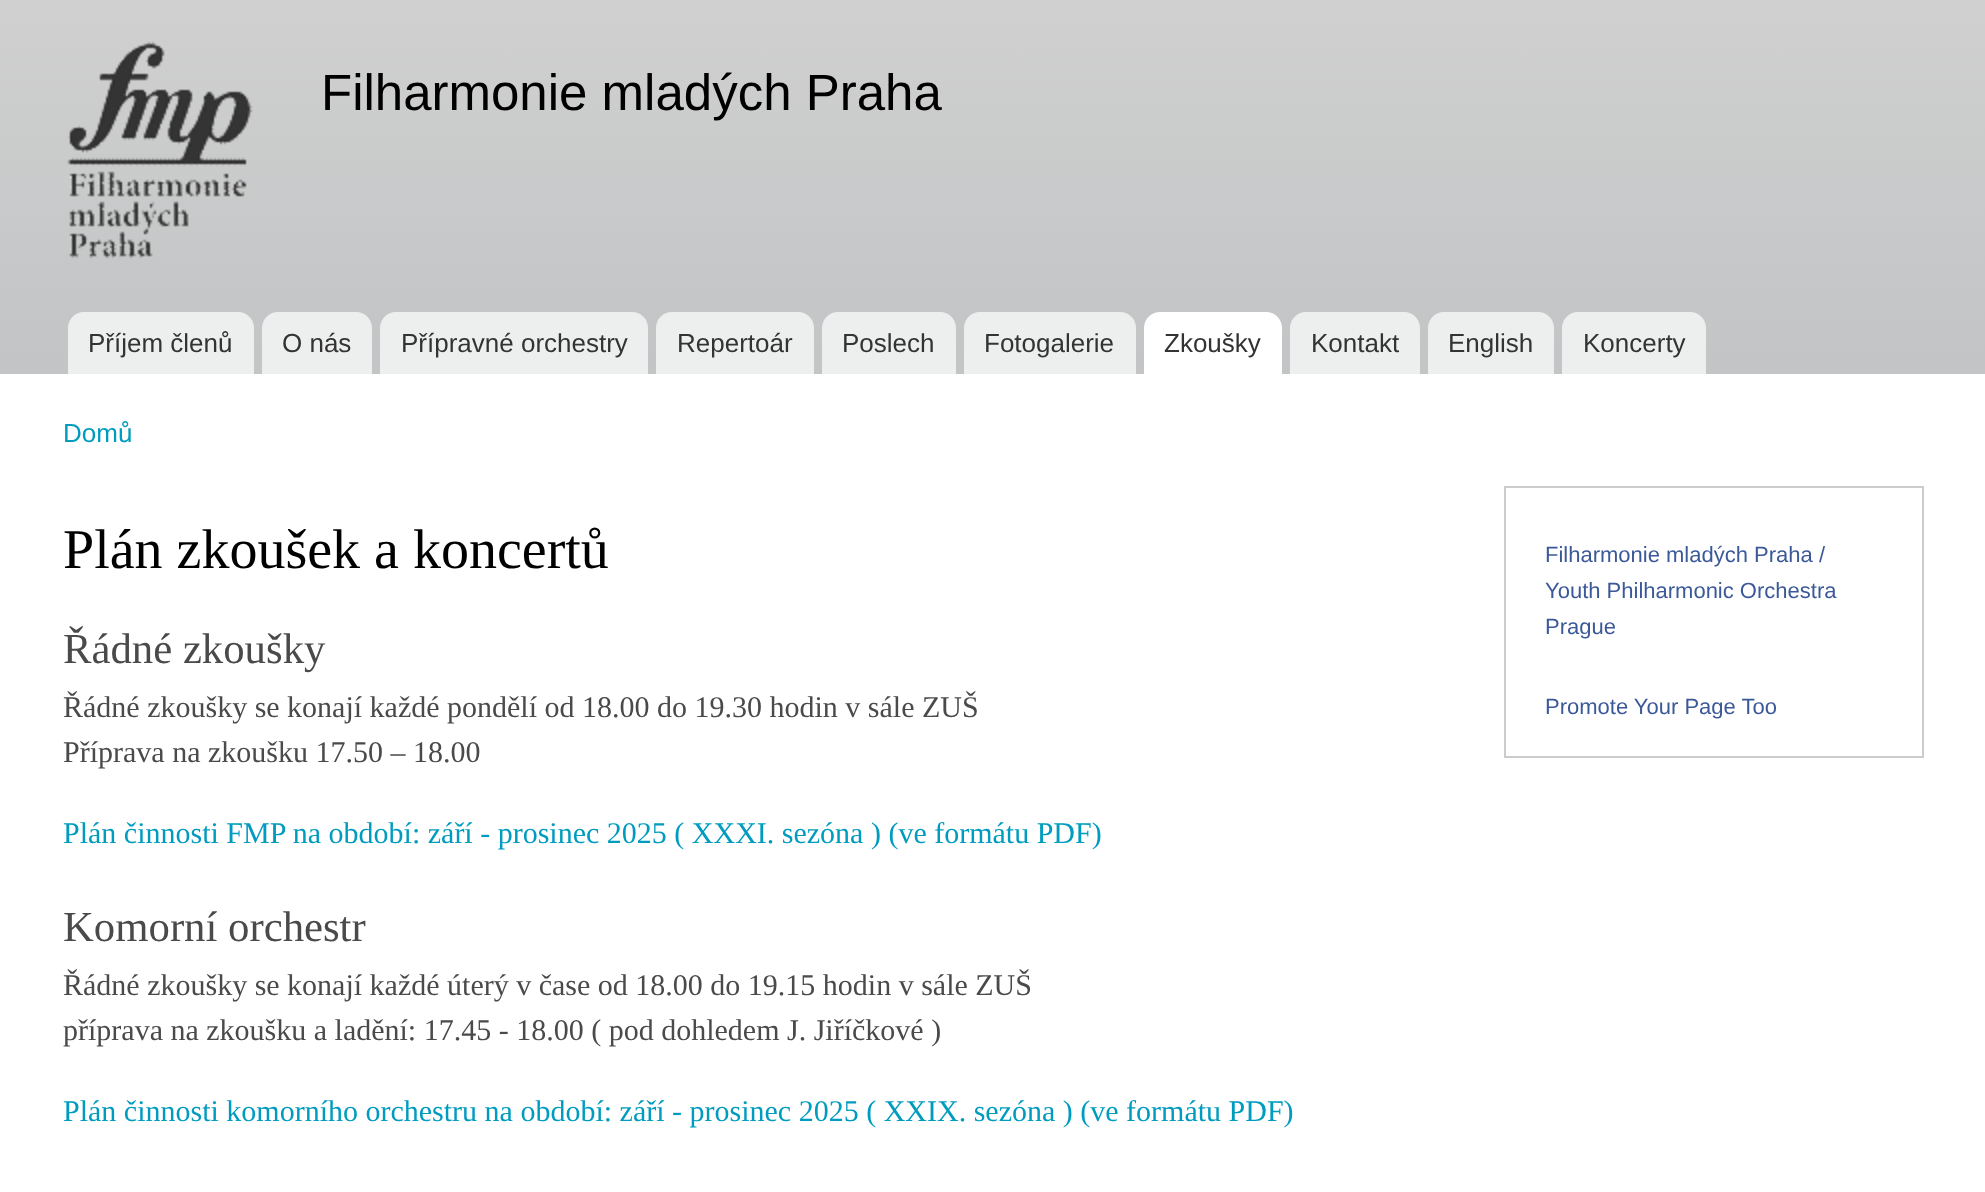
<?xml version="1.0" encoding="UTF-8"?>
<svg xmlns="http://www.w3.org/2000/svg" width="1985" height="1192">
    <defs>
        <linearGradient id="g1" gradientUnits="userSpaceOnUse" x1="993" y1="0" x2="993" y2="374"><stop offset="0" stop-color="#D0D0D0"/><stop offset="1" stop-color="#C2C4C5"/></linearGradient>
    </defs>
    <rect width="100%" height="100%" fill="#FFFFFF"/>
    <rect x="0" y="0" width="1985" height="374" fill="url(#g1)"/>
    <image x="67" y="41" width="186" height="218" href="img_01.png"/>
    <text x="321" y="110" font-family="Liberation Sans" font-size="51" fill="#000000">Filharmonie mladých Praha</text>
    <path d="M 84 312 H 238 C 247 312 254 319 254 328 V 374 H 68 V 328 C 68 319 75 312 84 312 Z" fill="#EDEEEE"/>
    <text x="88" y="352" font-family="Liberation Sans" font-size="26" fill="#333333">Příjem členů</text>
    <path d="M 278 312 H 356 C 365 312 372 319 372 328 V 374 H 262 V 328 C 262 319 269 312 278 312 Z" fill="#EDEEEE"/>
    <text x="282" y="352" font-family="Liberation Sans" font-size="26" fill="#333333">O nás</text>
    <path d="M 396 312 H 632 C 641 312 648 319 648 328 V 374 H 380 V 328 C 380 319 387 312 396 312 Z" fill="#EDEEEE"/>
    <text x="401" y="352" font-family="Liberation Sans" font-size="26" fill="#333333">Přípravné orchestry</text>
    <path d="M 672 312 H 798 C 807 312 814 319 814 328 V 374 H 656 V 328 C 656 319 663 312 672 312 Z" fill="#EDEEEE"/>
    <text x="677" y="352" font-family="Liberation Sans" font-size="26" fill="#333333">Repertoár</text>
    <path d="M 838 312 H 940 C 949 312 956 319 956 328 V 374 H 822 V 328 C 822 319 829 312 838 312 Z" fill="#EDEEEE"/>
    <text x="842" y="352" font-family="Liberation Sans" font-size="26" fill="#333333">Poslech</text>
    <path d="M 980 312 H 1120 C 1129 312 1136 319 1136 328 V 374 H 964 V 328 C 964 319 971 312 980 312 Z" fill="#EDEEEE"/>
    <text x="984" y="352" font-family="Liberation Sans" font-size="26" fill="#333333">Fotogalerie</text>
    <path d="M 1160 312 H 1266 C 1275 312 1282 319 1282 328 V 374 H 1144 V 328 C 1144 319 1151 312 1160 312 Z" fill="#FFFFFF"/>
    <text x="1164" y="352" font-family="Liberation Sans" font-size="26" fill="#333333">Zkoušky</text>
    <path d="M 1306 312 H 1404 C 1413 312 1420 319 1420 328 V 374 H 1290 V 328 C 1290 319 1297 312 1306 312 Z" fill="#EDEEEE"/>
    <text x="1311" y="352" font-family="Liberation Sans" font-size="26" fill="#333333">Kontakt</text>
    <path d="M 1444 312 H 1538 C 1547 312 1554 319 1554 328 V 374 H 1428 V 328 C 1428 319 1435 312 1444 312 Z" fill="#EDEEEE"/>
    <text x="1448" y="352" font-family="Liberation Sans" font-size="26" fill="#333333">English</text>
    <path d="M 1578 312 H 1690 C 1699 312 1706 319 1706 328 V 374 H 1562 V 328 C 1562 319 1569 312 1578 312 Z" fill="#EDEEEE"/>
    <text x="1583" y="352" font-family="Liberation Sans" font-size="26" fill="#333333">Koncerty</text>
    <text x="63" y="442" font-family="Liberation Sans" font-size="26" fill="#009CBF">Domů</text>
    <text x="63" y="568" font-family="Liberation Serif" font-size="56" fill="#000000">Plán zkoušek a koncertů</text>
    <text x="63" y="663" font-family="Liberation Serif" font-size="42.75" fill="#4A4A4A">Řádné zkoušky</text>
    <text font-family="Liberation Serif" font-size="30" fill="#4A4A4A">
        <tspan x="63" y="717">Řádné zkoušky se konají každé pondělí od 18.00 do 19.30 hodin v sále ZUŠ</tspan>
        <tspan x="63" y="762">Příprava na zkoušku 17.50 – 18.00</tspan>
    </text>
    <text x="63" y="843" font-family="Liberation Serif" font-size="30" fill="#009CBF">Plán činnosti FMP na období: září - prosinec 2025 ( XXXI. sezóna ) (ve formátu PDF)</text>
    <text x="63" y="941" font-family="Liberation Serif" font-size="42.75" fill="#4A4A4A">Komorní orchestr</text>
    <text font-family="Liberation Serif" font-size="30" fill="#4A4A4A">
        <tspan x="63" y="995">Řádné zkoušky se konají každé úterý v čase od 18.00 do 19.15 hodin v sále ZUŠ</tspan>
        <tspan x="63" y="1040">příprava na zkoušku a ladění: 17.45 - 18.00 ( pod dohledem J. Jiříčkové )</tspan>
    </text>
    <text x="63" y="1121" font-family="Liberation Serif" font-size="30" fill="#009CBF">Plán činnosti komorního orchestru na období: září - prosinec 2025 ( XXIX. sezóna ) (ve formátu PDF)</text>
    <rect x="1505" y="487" width="418" height="270" fill="none" stroke="#CCCCCC" stroke-width="2"/>
    <text font-family="Liberation Sans" font-size="22" fill="#3B5998">
        <tspan x="1545" y="562">Filharmonie mladých Praha /</tspan>
        <tspan x="1545" y="598">Youth Philharmonic Orchestra</tspan>
        <tspan x="1545" y="634">Prague</tspan>
    </text>
    <text x="1545" y="714" font-family="Liberation Sans" font-size="22" fill="#3B5998">Promote Your Page Too</text>
</svg>
